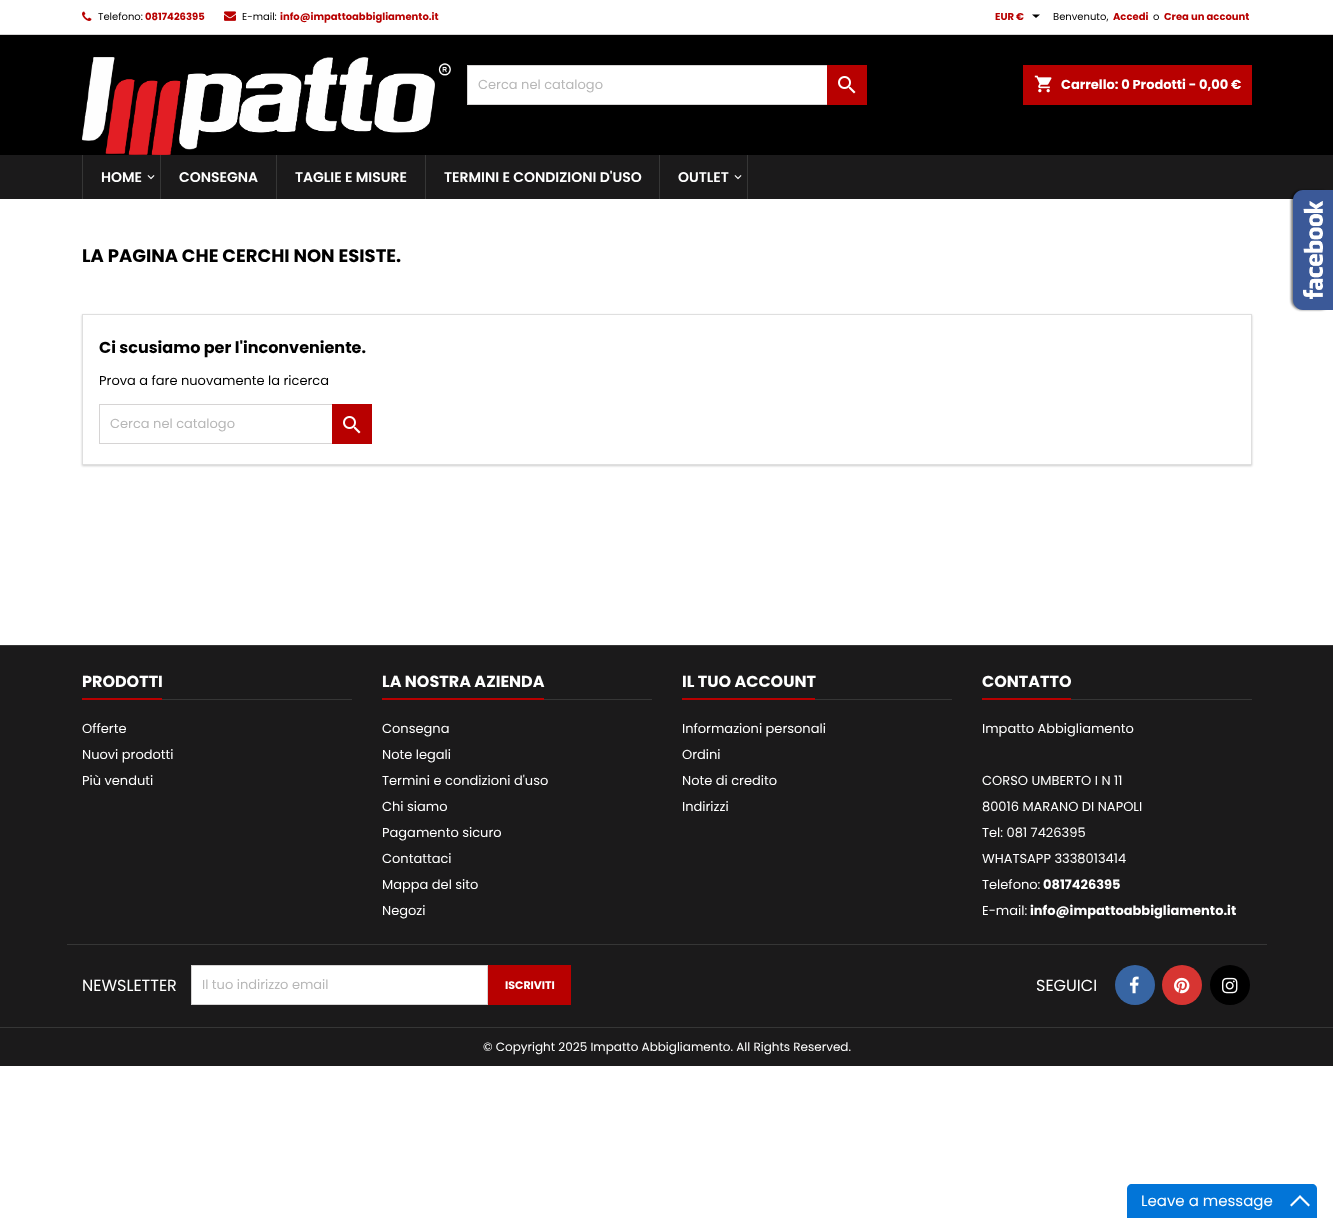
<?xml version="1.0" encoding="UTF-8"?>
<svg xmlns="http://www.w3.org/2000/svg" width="1333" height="1218">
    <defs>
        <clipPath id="clip1"><path d="M 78 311 H 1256 V 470 H 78 Z M 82 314 H 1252 V 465 H 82 Z" clip-rule="evenodd"/></clipPath>
        <filter id="blur1" x="-50%" y="-200%" width="200%" height="500%"><feGaussianBlur stdDeviation="1"/></filter>
    </defs>
    <rect width="100%" height="100%" fill="#FFFFFF"/>
    <rect x="0" y="34" width="1333" height="1" fill="#D6D4D4"/>
    <image x="82" y="11" width="10" height="10" href="img_01.png"/>
    <text x="98" y="20" font-family="Poppins" font-size="10" fill="#000000">Telefono:</text>
    <text x="145" y="20" font-family="Poppins" font-size="10" font-weight="700" fill="#B80000">0817426395</text>
    <image x="224" y="11" width="12" height="10" href="img_02.png"/>
    <text x="242" y="20" font-family="Poppins" font-size="10" fill="#000000">E-mail:</text>
    <text x="280" y="20" font-family="Poppins" font-size="10" font-weight="700" fill="#B80000">info@impattoabbigliamento.it</text>
    <text x="995" y="20" font-family="Poppins" font-size="10" font-weight="700" fill="#B80000">EUR €</text>
    <path d="M 1032 14.5 H 1040 L 1036 18 Z" fill="#000000"/>
    <text x="1053" y="20" font-family="Poppins" font-size="10" fill="#000000">Benvenuto,</text>
    <text x="1113" y="20" font-family="Poppins" font-size="10" font-weight="700" fill="#B80000">Accedi</text>
    <text x="1153" y="20" font-family="Poppins" font-size="10" fill="#000000">o</text>
    <text x="1164" y="20" font-family="Poppins" font-size="10" font-weight="700" fill="#B80000">Crea un account</text>
    <rect x="0" y="35" width="1333" height="120" fill="#000000"/>
    <image x="82" y="57" width="369" height="98" href="img_03.png"/>
    <rect x="468" y="66" width="359" height="38" fill="#FFFFFF"/>
    <rect x="467.5" y="65.5" width="399" height="39" fill="none" stroke="#D6D4D4"/>
    <text x="478" y="89" font-family="Poppins" font-size="13" fill="#B7B7B7">Cerca nel catalogo</text>
    <rect x="827" y="65" width="40" height="40" fill="#B80000"/>
    <image x="838" y="76" width="18" height="18" href="img_04.png"/>
    <rect x="1023" y="65" width="229" height="40" fill="#B80000"/>
    <image x="1034" y="75" width="18" height="18" href="img_05.png"/>
    <text x="1061" y="89" font-family="Poppins" font-size="13" font-weight="700" fill="#FFFFFF">Carrello: 0 Prodotti - 0,00 €</text>
    <rect x="0" y="155" width="1333" height="44" fill="#1B1A1B"/>
    <rect x="160" y="155" width="1" height="44" fill="#363636"/>
    <rect x="82" y="155" width="1" height="44" fill="#363636"/>
    <text x="101" y="182" font-family="Poppins" font-size="14" font-weight="600" fill="#FFFFFF">HOME</text>
    <image x="147" y="175" width="8" height="5" href="img_06.png"/>
    <rect x="276" y="155" width="1" height="44" fill="#363636"/>
    <text x="179" y="182" font-family="Poppins" font-size="14" font-weight="600" fill="#FFFFFF">CONSEGNA</text>
    <rect x="425" y="155" width="1" height="44" fill="#363636"/>
    <text x="295" y="182" font-family="Poppins" font-size="14" font-weight="600" fill="#FFFFFF">TAGLIE E MISURE</text>
    <rect x="659" y="155" width="1" height="44" fill="#363636"/>
    <text x="444" y="182" font-family="Poppins" font-size="14" font-weight="600" fill="#FFFFFF">TERMINI E CONDIZIONI D'USO</text>
    <rect x="747" y="155" width="1" height="44" fill="#363636"/>
    <text x="678" y="182" font-family="Poppins" font-size="14" font-weight="600" fill="#FFFFFF">OUTLET</text>
    <image x="734" y="175" width="8" height="5" href="img_06.png"/>
    <text x="82" y="262" font-family="Poppins" font-size="18" font-weight="700" fill="#000000">LA PAGINA CHE CERCHI NON ESISTE.</text>
    <g clip-path="url(#clip1)">
        <rect x="82" y="315" width="1170" height="151" fill="#000000" fill-opacity="0.2" filter="url(#blur1)"/>
    </g>
    <rect x="82.5" y="314.5" width="1169" height="150" fill="none" stroke="#DFDFDF"/>
    <text x="99" y="353" font-family="Poppins" font-size="16" font-weight="700" fill="#000000">Ci scusiamo per l'inconveniente.</text>
    <text x="99" y="385" font-family="Poppins" font-size="13" fill="#000000">Prova a fare nuovamente la ricerca</text>
    <rect x="99.5" y="404.5" width="272" height="39" fill="none" stroke="#D6D4D4"/>
    <text x="110" y="428" font-family="Poppins" font-size="13" fill="#B7B7B7">Cerca nel catalogo</text>
    <rect x="332" y="404" width="40" height="40" fill="#B80000"/>
    <image x="343" y="416" width="18" height="18" href="img_04.png"/>
    <rect x="1291" y="190" width="40" height="120" rx="10" fill="#000000" fill-opacity="0.5" filter="url(#blur1)"/>
    <path d="M 1303 190 H 1333 V 310 H 1303 C 1297.5 310 1293 305.5 1293 300 V 200 C 1293 194.5 1297.5 190 1303 190 Z" fill="#3B5998"/>
    <image x="1303" y="201" width="20" height="98" href="img_07.png"/>
    <rect x="0" y="646" width="1333" height="420" fill="#1B1A1B"/>
    <rect x="0" y="645" width="1333" height="1" fill="#363636"/>
    <rect x="162" y="699" width="190" height="1" fill="#363636"/>
    <rect x="82" y="698" width="80" height="2" fill="#B80000"/>
    <text x="82" y="687" font-family="Poppins" font-size="16" font-weight="700" fill="#FFFFFF">PRODOTTI</text>
    <text x="82" y="733" font-family="Poppins" font-size="13" fill="#FFFFFF">Offerte</text>
    <text x="82" y="759" font-family="Poppins" font-size="13" fill="#FFFFFF">Nuovi prodotti</text>
    <text x="82" y="785" font-family="Poppins" font-size="13" fill="#FFFFFF">Più venduti</text>
    <rect x="544" y="699" width="108" height="1" fill="#363636"/>
    <rect x="382" y="698" width="162" height="2" fill="#B80000"/>
    <text x="382" y="687" font-family="Poppins" font-size="16" font-weight="700" fill="#FFFFFF">LA NOSTRA AZIENDA</text>
    <text x="382" y="733" font-family="Poppins" font-size="13" fill="#FFFFFF">Consegna</text>
    <text x="382" y="759" font-family="Poppins" font-size="13" fill="#FFFFFF">Note legali</text>
    <text x="382" y="785" font-family="Poppins" font-size="13" fill="#FFFFFF">Termini e condizioni d'uso</text>
    <text x="382" y="811" font-family="Poppins" font-size="13" fill="#FFFFFF">Chi siamo</text>
    <text x="382" y="837" font-family="Poppins" font-size="13" fill="#FFFFFF">Pagamento sicuro</text>
    <text x="382" y="863" font-family="Poppins" font-size="13" fill="#FFFFFF">Contattaci</text>
    <text x="382" y="889" font-family="Poppins" font-size="13" fill="#FFFFFF">Mappa del sito</text>
    <text x="382" y="915" font-family="Poppins" font-size="13" fill="#FFFFFF">Negozi</text>
    <rect x="815" y="699" width="137" height="1" fill="#363636"/>
    <rect x="682" y="698" width="133" height="2" fill="#B80000"/>
    <text x="682" y="687" font-family="Poppins" font-size="16" font-weight="700" fill="#FFFFFF">IL TUO ACCOUNT</text>
    <text x="682" y="733" font-family="Poppins" font-size="13" fill="#FFFFFF">Informazioni personali</text>
    <text x="682" y="759" font-family="Poppins" font-size="13" fill="#FFFFFF">Ordini</text>
    <text x="682" y="785" font-family="Poppins" font-size="13" fill="#FFFFFF">Note di credito</text>
    <text x="682" y="811" font-family="Poppins" font-size="13" fill="#FFFFFF">Indirizzi</text>
    <rect x="1071" y="699" width="181" height="1" fill="#363636"/>
    <rect x="982" y="698" width="89" height="2" fill="#B80000"/>
    <text x="982" y="687" font-family="Poppins" font-size="16" font-weight="700" fill="#FFFFFF">CONTATTO</text>
    <text x="982" y="733" font-family="Poppins" font-size="13" fill="#FFFFFF">Impatto Abbigliamento</text>
    <text x="982" y="785" font-family="Poppins" font-size="13" fill="#FFFFFF">CORSO UMBERTO I N 11</text>
    <text x="982" y="811" font-family="Poppins" font-size="13" fill="#FFFFFF">80016 MARANO DI NAPOLI</text>
    <text x="982" y="837" font-family="Poppins" font-size="13" fill="#FFFFFF">Tel: 081 7426395</text>
    <text x="982" y="863" font-family="Poppins" font-size="13" fill="#FFFFFF">WHATSAPP 3338013414</text>
    <text x="982" y="889" font-family="Poppins" font-size="13" fill="#FFFFFF">Telefono:</text>
    <text x="1043" y="889" font-family="Poppins" font-size="13" font-weight="700" fill="#FFFFFF">0817426395</text>
    <text x="982" y="915" font-family="Poppins" font-size="13" fill="#FFFFFF">E-mail:</text>
    <text x="1030" y="915" font-family="Poppins" font-size="13" font-weight="700" fill="#FFFFFF">info@impattoabbigliamento.it</text>
    <rect x="67" y="944" width="1200" height="1" fill="#363636"/>
    <text x="82" y="991" font-family="Poppins" font-size="16" fill="#FFFFFF">NEWSLETTER</text>
    <rect x="191.5" y="965.5" width="296" height="39" fill="#FFFFFF" stroke="#D6D4D4"/>
    <text x="202" y="989" font-family="Poppins" font-size="13" fill="#B7B7B7">Il tuo indirizzo email</text>
    <rect x="488" y="965" width="83" height="40" fill="#B80000"/>
    <text x="505" y="989" font-family="Poppins" font-size="11" font-weight="700" fill="#FFFFFF">ISCRIVITI</text>
    <text x="1036" y="991" font-family="Poppins" font-size="16" fill="#FFFFFF">SEGUICI</text>
    <circle cx="1135" cy="985" r="20" fill="#3765A3"/>
    <image x="1129" y="976" width="10" height="18" href="img_08.png"/>
    <circle cx="1182" cy="985" r="20" fill="#D73532"/>
    <image x="1174" y="977" width="16" height="17" href="img_09.png"/>
    <circle cx="1230" cy="985" r="20" fill="#000000"/>
    <image x="1222" y="977" width="16" height="17" href="img_10.png"/>
    <rect x="0" y="1027" width="1333" height="1" fill="#363636"/>
    <text x="483" y="1051" font-family="Poppins" font-size="12" fill="#FFFFFF">© Copyright 2025 Impatto Abbigliamento. All Rights Reserved.</text>
    <path d="M 1132 1184 H 1312 C 1315 1184 1317 1186 1317 1189 V 1218 H 1127 V 1189 C 1127 1186 1129 1184 1132 1184 Z" fill="#0275D8"/>
    <text x="1141" y="1206" font-family="Poppins" font-size="15" fill="#FFFFFF">Leave a message</text>
    <path d="M 1300 1195 L 1310 1205 L 1308.5 1206.5 L 1300 1198 L 1291.5 1206.5 L 1290 1205 Z" fill="#FFFFFF"/>
</svg>
